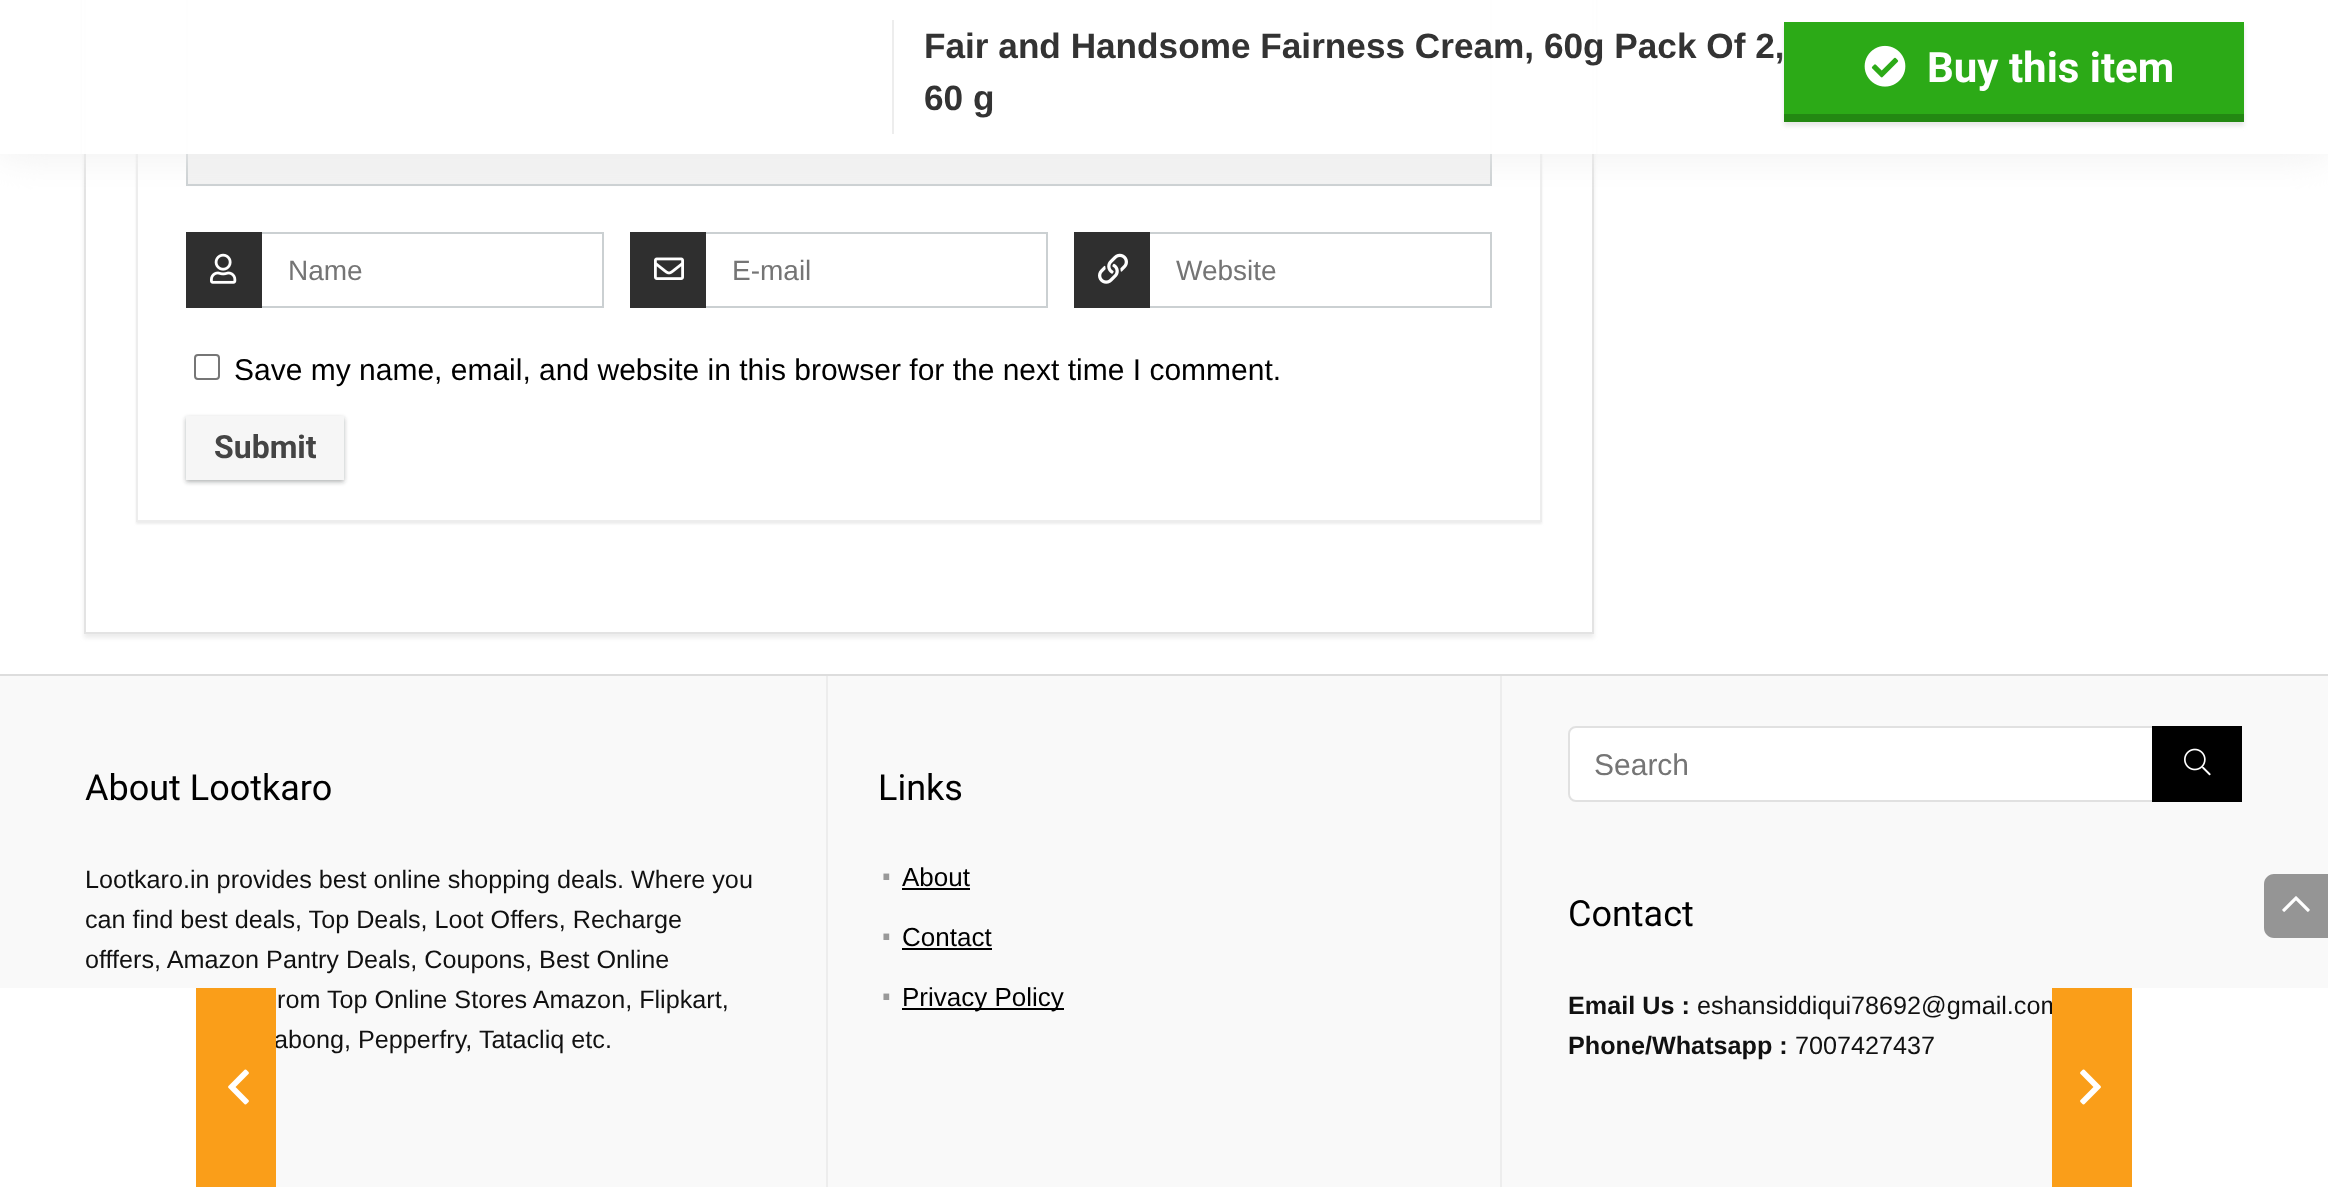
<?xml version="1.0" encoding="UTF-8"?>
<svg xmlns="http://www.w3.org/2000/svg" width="2328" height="1187">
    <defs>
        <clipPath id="clip1"><path d="M 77 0 H 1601 V 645 H 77 Z M 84 -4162 H 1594 V 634 H 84 Z" clip-rule="evenodd"/></clipPath>
        <filter id="blur1" x="-50%" y="-200%" width="200%" height="500%"><feGaussianBlur stdDeviation="2"/></filter>
        <clipPath id="clip2"><path d="M 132 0 H 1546 V 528 H 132 Z M 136 -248 H 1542 V 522 H 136 Z" clip-rule="evenodd"/></clipPath>
        <filter id="blur2" x="-50%" y="-200%" width="200%" height="500%"><feGaussianBlur stdDeviation="1"/></filter>
        <clipPath id="clip3"><rect x="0" y="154" width="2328" height="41"/></clipPath>
        <filter id="blur3" x="-50%" y="-200%" width="200%" height="500%"><feGaussianBlur stdDeviation="20"/></filter>
    </defs>
    <rect width="100%" height="100%" fill="#FFFFFF"/>
    <g clip-path="url(#clip1)">
        <rect x="84" y="-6" width="1510" height="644" fill="#ECECEC" filter="url(#blur1)"/>
    </g>
    <rect x="85" y="-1" width="1508" height="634" fill="none" stroke="#E3E3E3" stroke-width="2"/>
    <g clip-path="url(#clip2)">
        <rect x="136" y="-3" width="1406" height="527" fill="#EDEDED" filter="url(#blur2)"/>
    </g>
    <rect x="137" y="-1" width="1404" height="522" fill="none" stroke="#EDEDED" stroke-width="2"/>
    <rect x="187" y="-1" width="1304" height="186" fill="#F2F2F2" stroke="#CBD0D2" stroke-width="2"/>
    <g clip-path="url(#clip3)">
        <rect x="0" y="0" width="2328" height="154" fill="#EEEEEE" filter="url(#blur3)"/>
    </g>
    <rect x="82" y="0" width="1514" height="154" fill="#FFFFFF" fill-opacity="0.97"/>
    <rect x="892" y="20" width="2" height="114" fill="#EDEDED"/>
    <text font-family="Liberation Sans" font-size="35.2" font-weight="700" fill="#333333">
        <tspan x="924" y="58">Fair and Handsome Fairness Cream, 60g Pack Of 2,</tspan>
        <tspan x="924" y="110">60 g</tspan>
    </text>
    <rect x="1784" y="26" width="460" height="100" fill="#E7E7E7" filter="url(#blur1)"/>
    <rect x="1784" y="22" width="460" height="92" fill="#2CAA17"/>
    <rect x="1784" y="114" width="460" height="8" fill="#238812"/>
    <image x="1864" y="45" width="42" height="42" href="img_01.png"/>
    <text x="1927" y="82" font-family="Roboto" font-size="42" font-weight="700" fill="#FFFFFF">Buy this item</text>
    <rect x="187" y="233" width="416" height="74" fill="none" stroke="#CBD0D2" stroke-width="2"/>
    <rect x="186" y="232" width="76" height="76" fill="#2F2F2F"/>
    <image x="210" y="253" width="27" height="31" href="img_02.png"/>
    <text x="288" y="280" font-family="Liberation Sans" font-size="28" fill="#757575">Name</text>
    <rect x="631" y="233" width="416" height="74" fill="none" stroke="#CBD0D2" stroke-width="2"/>
    <rect x="630" y="232" width="76" height="76" fill="#2F2F2F"/>
    <image x="654" y="257" width="30" height="23" href="img_03.png"/>
    <text x="732" y="280" font-family="Liberation Sans" font-size="28" fill="#757575">E-mail</text>
    <rect x="1075" y="233" width="416" height="74" fill="none" stroke="#CBD0D2" stroke-width="2"/>
    <rect x="1074" y="232" width="76" height="76" fill="#2F2F2F"/>
    <image x="1098" y="253" width="30" height="31" href="img_04.png"/>
    <text x="1176" y="280" font-family="Liberation Sans" font-size="28" fill="#757575">Website</text>
    <rect x="195" y="355" width="24" height="24" rx="3" fill="none" stroke="#767676" stroke-width="2"/>
    <text x="234" y="380" font-family="Liberation Sans" font-size="30" fill="#000000">Save my name, email, and website in this browser for the next time I comment.</text>
    <rect x="186" y="418" width="158" height="64" fill="#000000" fill-opacity="0.08" filter="url(#blur1)"/>
    <rect x="186" y="418" width="158" height="64" fill="#3C4043" fill-opacity="0.3" filter="url(#blur1)"/>
    <rect x="186" y="416" width="158" height="64" fill="#F6F6F6"/>
    <text x="214" y="458" font-family="Roboto" font-size="32" font-weight="700" fill="#444444">Submit</text>
    <rect x="0" y="676" width="2328" height="511" fill="#F9F9F9"/>
    <text x="274" y="1048" font-family="Liberation Sans" font-size="25.2" fill="#111111">abong, Pepperfry, Tatacliq etc.</text>
    <rect x="196" y="988" width="80" height="199" fill="#FA9E19"/>
    <rect x="0" y="988" width="196" height="199" fill="#FFFFFF"/>
    <image x="228" y="1069" width="21" height="36" href="img_05.png"/>
    <text x="1697" y="1014" font-family="Liberation Sans" font-size="25.2" fill="#111111">eshansiddiqui78692@gmail.com</text>
    <rect x="2052" y="988" width="80" height="199" fill="#FA9E19"/>
    <image x="2080" y="1069" width="21" height="36" href="img_06.png"/>
    <rect x="2132" y="988" width="196" height="199" fill="#FFFFFF"/>
    <rect x="0" y="674" width="2328" height="2" fill="#DDDDDD"/>
    <text x="85" y="800" font-family="Roboto" font-size="36" fill="#000000">About Lootkaro</text>
    <text font-family="Liberation Sans" font-size="25.2" fill="#111111">
        <tspan x="85" y="888">Lootkaro.in provides best online shopping deals. Where you</tspan>
        <tspan x="85" y="928">can find best deals, Top Deals, Loot Offers, Recharge</tspan>
        <tspan x="85" y="968">offfers, Amazon Pantry Deals, Coupons, Best Online</tspan>
    </text>
    <text x="277" y="1008" font-family="Liberation Sans" font-size="25.2" fill="#111111">rom Top Online Stores Amazon, Flipkart,</text>
    <rect x="1500" y="676" width="2" height="511" fill="#EDEDED"/>
    <rect x="826" y="676" width="2" height="511" fill="#EDEDED"/>
    <text x="878" y="800" font-family="Roboto" font-size="36" fill="#000000">Links</text>
    <text x="878" y="880" font-family="Liberation Sans" font-size="60" fill="#999999">.</text>
    <text x="902" y="886" font-family="Liberation Sans" font-size="26" fill="#000000">About</text>
    <rect x="902" y="888" width="68" height="2" fill="#000000"/>
    <text x="878" y="940" font-family="Liberation Sans" font-size="60" fill="#999999">.</text>
    <text x="902" y="946" font-family="Liberation Sans" font-size="26" fill="#000000">Contact</text>
    <rect x="902" y="948" width="90" height="2" fill="#000000"/>
    <text x="878" y="1000" font-family="Liberation Sans" font-size="60" fill="#999999">.</text>
    <rect x="902" y="1008" width="162" height="2" fill="#000000"/>
    <text x="902" y="1006" font-family="Liberation Sans" font-size="26" fill="#000000">Privacy Policy</text>
    <rect x="1569" y="727" width="672" height="74" rx="7" fill="#FFFFFF" stroke="#E1E1E1" stroke-width="2"/>
    <text x="1594" y="775" font-family="Liberation Sans" font-size="30" fill="#757575">Search</text>
    <rect x="2152" y="726" width="90" height="76" fill="#000000"/>
    <image x="2184" y="748" width="27" height="28" href="img_07.png"/>
    <text x="1568" y="926" font-family="Roboto" font-size="36" fill="#000000">Contact</text>
    <text font-family="Liberation Sans" font-size="25.2" font-weight="700" fill="#111111">
        <tspan x="1568" y="1014">Email Us :</tspan>
        <tspan x="1568" y="1054">Phone/Whatsapp :</tspan>
    </text>
    <text x="1795" y="1054" font-family="Liberation Sans" font-size="25.2" fill="#111111">7007427437</text>
    <path d="M 2274 874 H 2328 V 938 H 2274 C 2268.5 938 2264 933.5 2264 928 V 884 C 2264 878.5 2268.5 874 2274 874 Z" fill="#959595"/>
    <image x="2282" y="896" width="28" height="16" href="img_08.png"/>
</svg>
